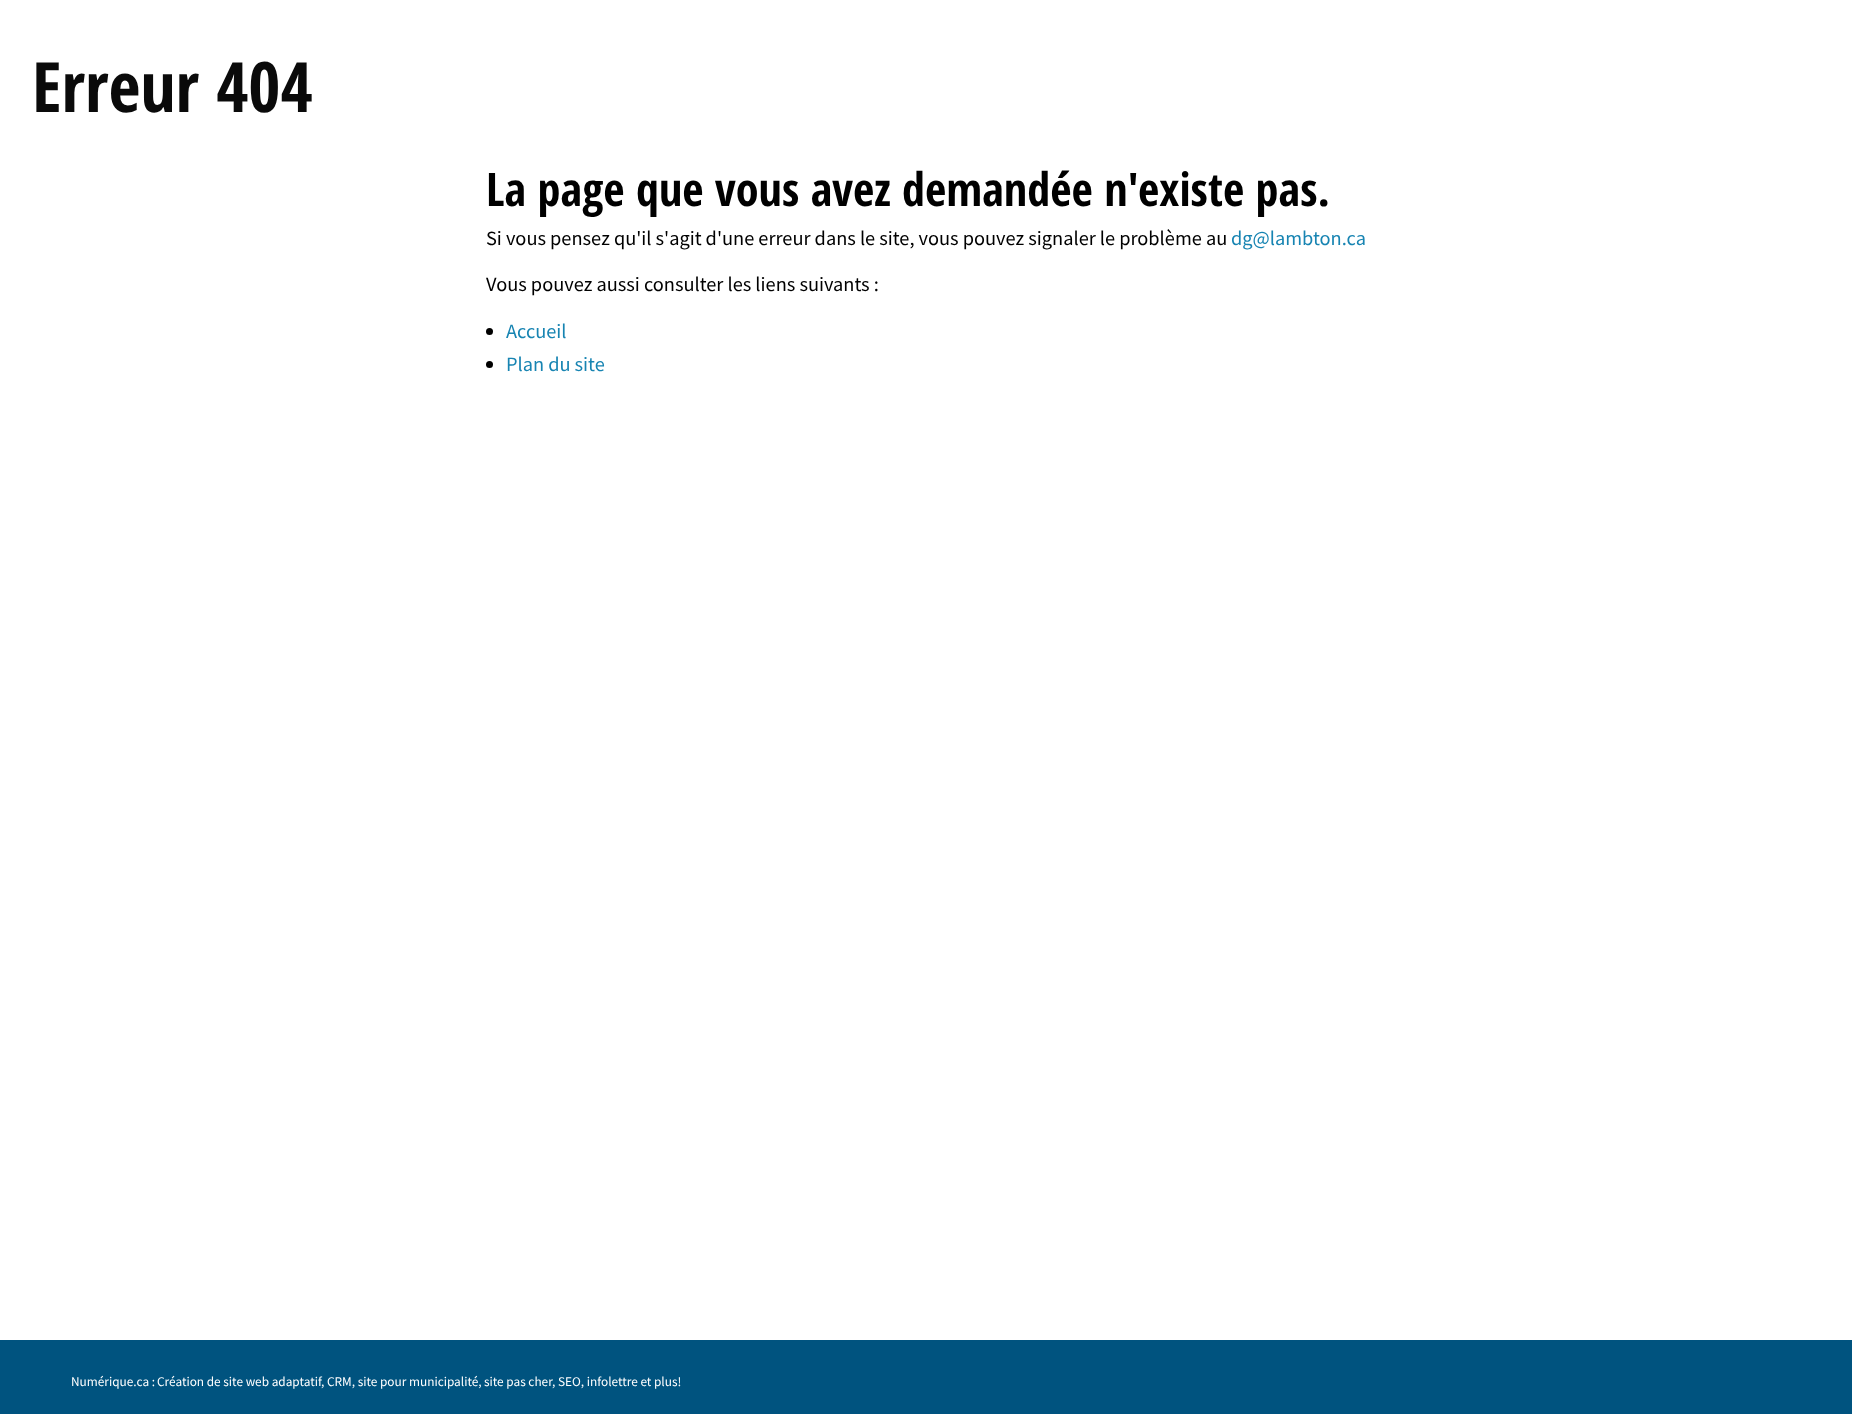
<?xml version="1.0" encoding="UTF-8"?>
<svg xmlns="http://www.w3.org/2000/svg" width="1852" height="1414">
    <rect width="100%" height="100%" fill="#FFFFFF"/>
    <text x="32" y="112" font-family="Open Sans Condensed" font-size="69.5" font-weight="700" fill="#0A0A0A">Erreur 404</text>
    <text x="486" y="206" font-family="Open Sans Condensed" font-size="46.25" font-weight="700" fill="#000000">La page que vous avez demandée n'existe pas.</text>
    <text x="486" y="245" font-family="Source Sans Pro" font-size="20.35" fill="#000000">Si vous pensez qu'il s'agit d'une erreur dans le site, vous pouvez signaler le problème au</text>
    <text x="1231" y="245" font-family="Source Sans Pro" font-size="20.35" fill="#1784B2">dg@lambton.ca</text>
    <text x="486" y="291" font-family="Source Sans Pro" font-size="20.35" fill="#000000">Vous pouvez aussi consulter les liens suivants :</text>
    <circle cx="489.5" cy="331.5" r="3.5" fill="#000000"/>
    <text x="506" y="338" font-family="Source Sans Pro" font-size="20.35" fill="#1784B2">Accueil</text>
    <circle cx="489.5" cy="364.5" r="3.5" fill="#000000"/>
    <text x="506" y="371" font-family="Source Sans Pro" font-size="20.35" fill="#1784B2">Plan du site</text>
    <rect x="0" y="1340" width="1852" height="74" fill="#00537F"/>
    <text x="71" y="1386" font-family="Source Sans Pro" font-size="13.25" fill="#FFFFFF">Numérique.ca :</text>
    <text x="157" y="1386" font-family="Source Sans Pro" font-size="13.25" fill="#FFFFFF">Création de site web adaptatif</text>
    <text x="321" y="1386" font-family="Source Sans Pro" font-size="13.25" fill="#FFFFFF">, CRM, site pour municipalité,</text>
    <text x="484" y="1386" font-family="Source Sans Pro" font-size="13.25" fill="#FFFFFF">site pas cher</text>
    <text x="552" y="1386" font-family="Source Sans Pro" font-size="13.25" fill="#FFFFFF">, SEO, infolettre et plus!</text>
</svg>
